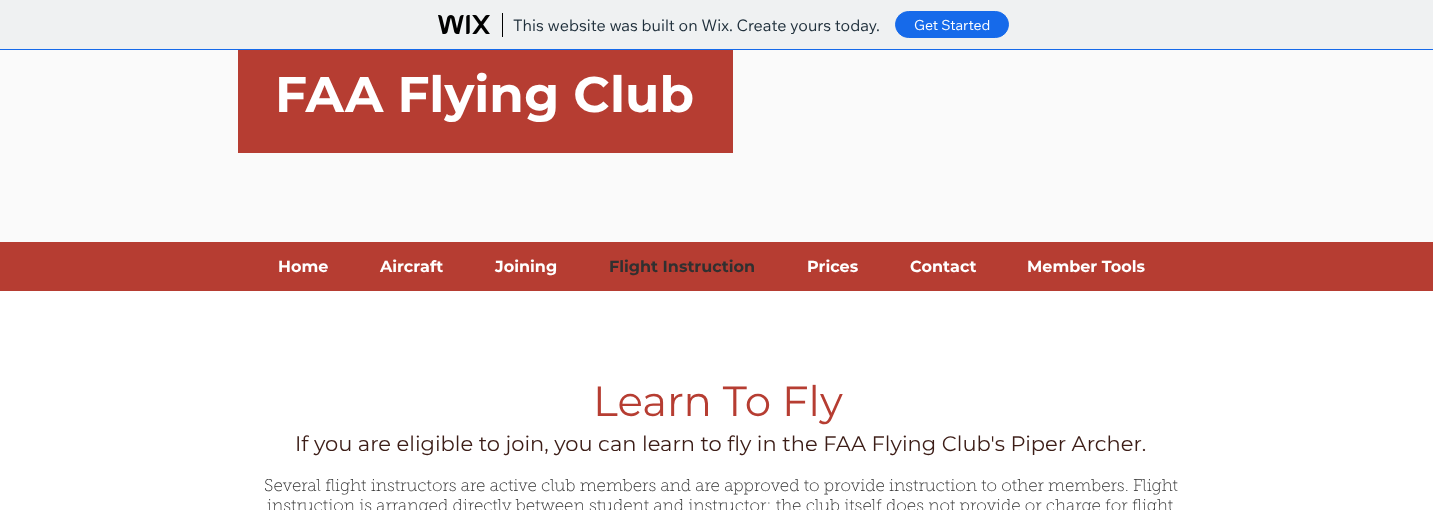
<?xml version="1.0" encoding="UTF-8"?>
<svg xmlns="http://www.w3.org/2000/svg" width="1433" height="510">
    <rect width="100%" height="100%" fill="#FFFFFF"/>
    <rect x="0" y="0" width="1433" height="49" fill="#EFF1F2"/>
    <rect x="0" y="49" width="1433" height="1" fill="#166AEA"/>
    <rect x="502" y="13" width="1" height="24" fill="#000000"/>
    <image x="438" y="15" width="52" height="19" href="img_01.png"/>
    <text x="513" y="31" font-family="Wix Madefor Text" font-size="16" fill="#20303C">This website was built on Wix. Create yours today.</text>
    <rect x="895.5" y="11.5" width="113" height="26" rx="13" fill="#166AEA" stroke="#166AEA"/>
    <text x="914" y="30" font-family="Wix Madefor Text" font-size="14" fill="#FFFFFF">Get Started</text>
    <rect x="0" y="50" width="1433" height="192" fill="#FAFAFA"/>
    <rect x="238" y="50" width="495" height="103" fill="#B63D32"/>
    <text x="275" y="112" font-family="Montserrat" font-size="50" font-weight="700" fill="#FFFFFF">FAA Flying Club</text>
    <rect x="0" y="242" width="1433" height="49" fill="#B63D32"/>
    <text x="278" y="272" font-family="Montserrat" font-size="16" font-weight="700" fill="#FFFFFF">Home</text>
    <text x="380" y="272" font-family="Montserrat" font-size="16" font-weight="700" fill="#FFFFFF">Aircraft</text>
    <text x="495" y="272" font-family="Montserrat" font-size="16" font-weight="700" fill="#FFFFFF">Joining</text>
    <text x="609" y="272" font-family="Montserrat" font-size="16" font-weight="700" fill="#303030">Flight Instruction</text>
    <text x="807" y="272" font-family="Montserrat" font-size="16" font-weight="700" fill="#FFFFFF">Prices</text>
    <text x="910" y="272" font-family="Montserrat" font-size="16" font-weight="700" fill="#FFFFFF">Contact</text>
    <text x="1027" y="272" font-family="Montserrat" font-size="16" font-weight="700" fill="#FFFFFF">Member Tools</text>
    <text x="593" y="416" font-family="Montserrat" font-size="42" fill="#B63D32">Learn To Fly</text>
    <text x="295" y="451" font-family="Montserrat" font-size="21" fill="#3C1D17">If you are eligible to join, you can learn to fly in the FAA Flying Club's Piper Archer.</text>
    <text x="264" y="491" font-family="'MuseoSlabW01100'" font-size="17" font-weight="100" fill="#303030">Several flight instructors are active club members and are approved to provide instruction to other members. Flight</text>
    <text x="267" y="511" font-family="'MuseoSlabW01100'" font-size="17" font-weight="100" fill="#303030">instruction is arranged directly between student and instructor; the club itself does not provide or charge for flight</text>
</svg>
